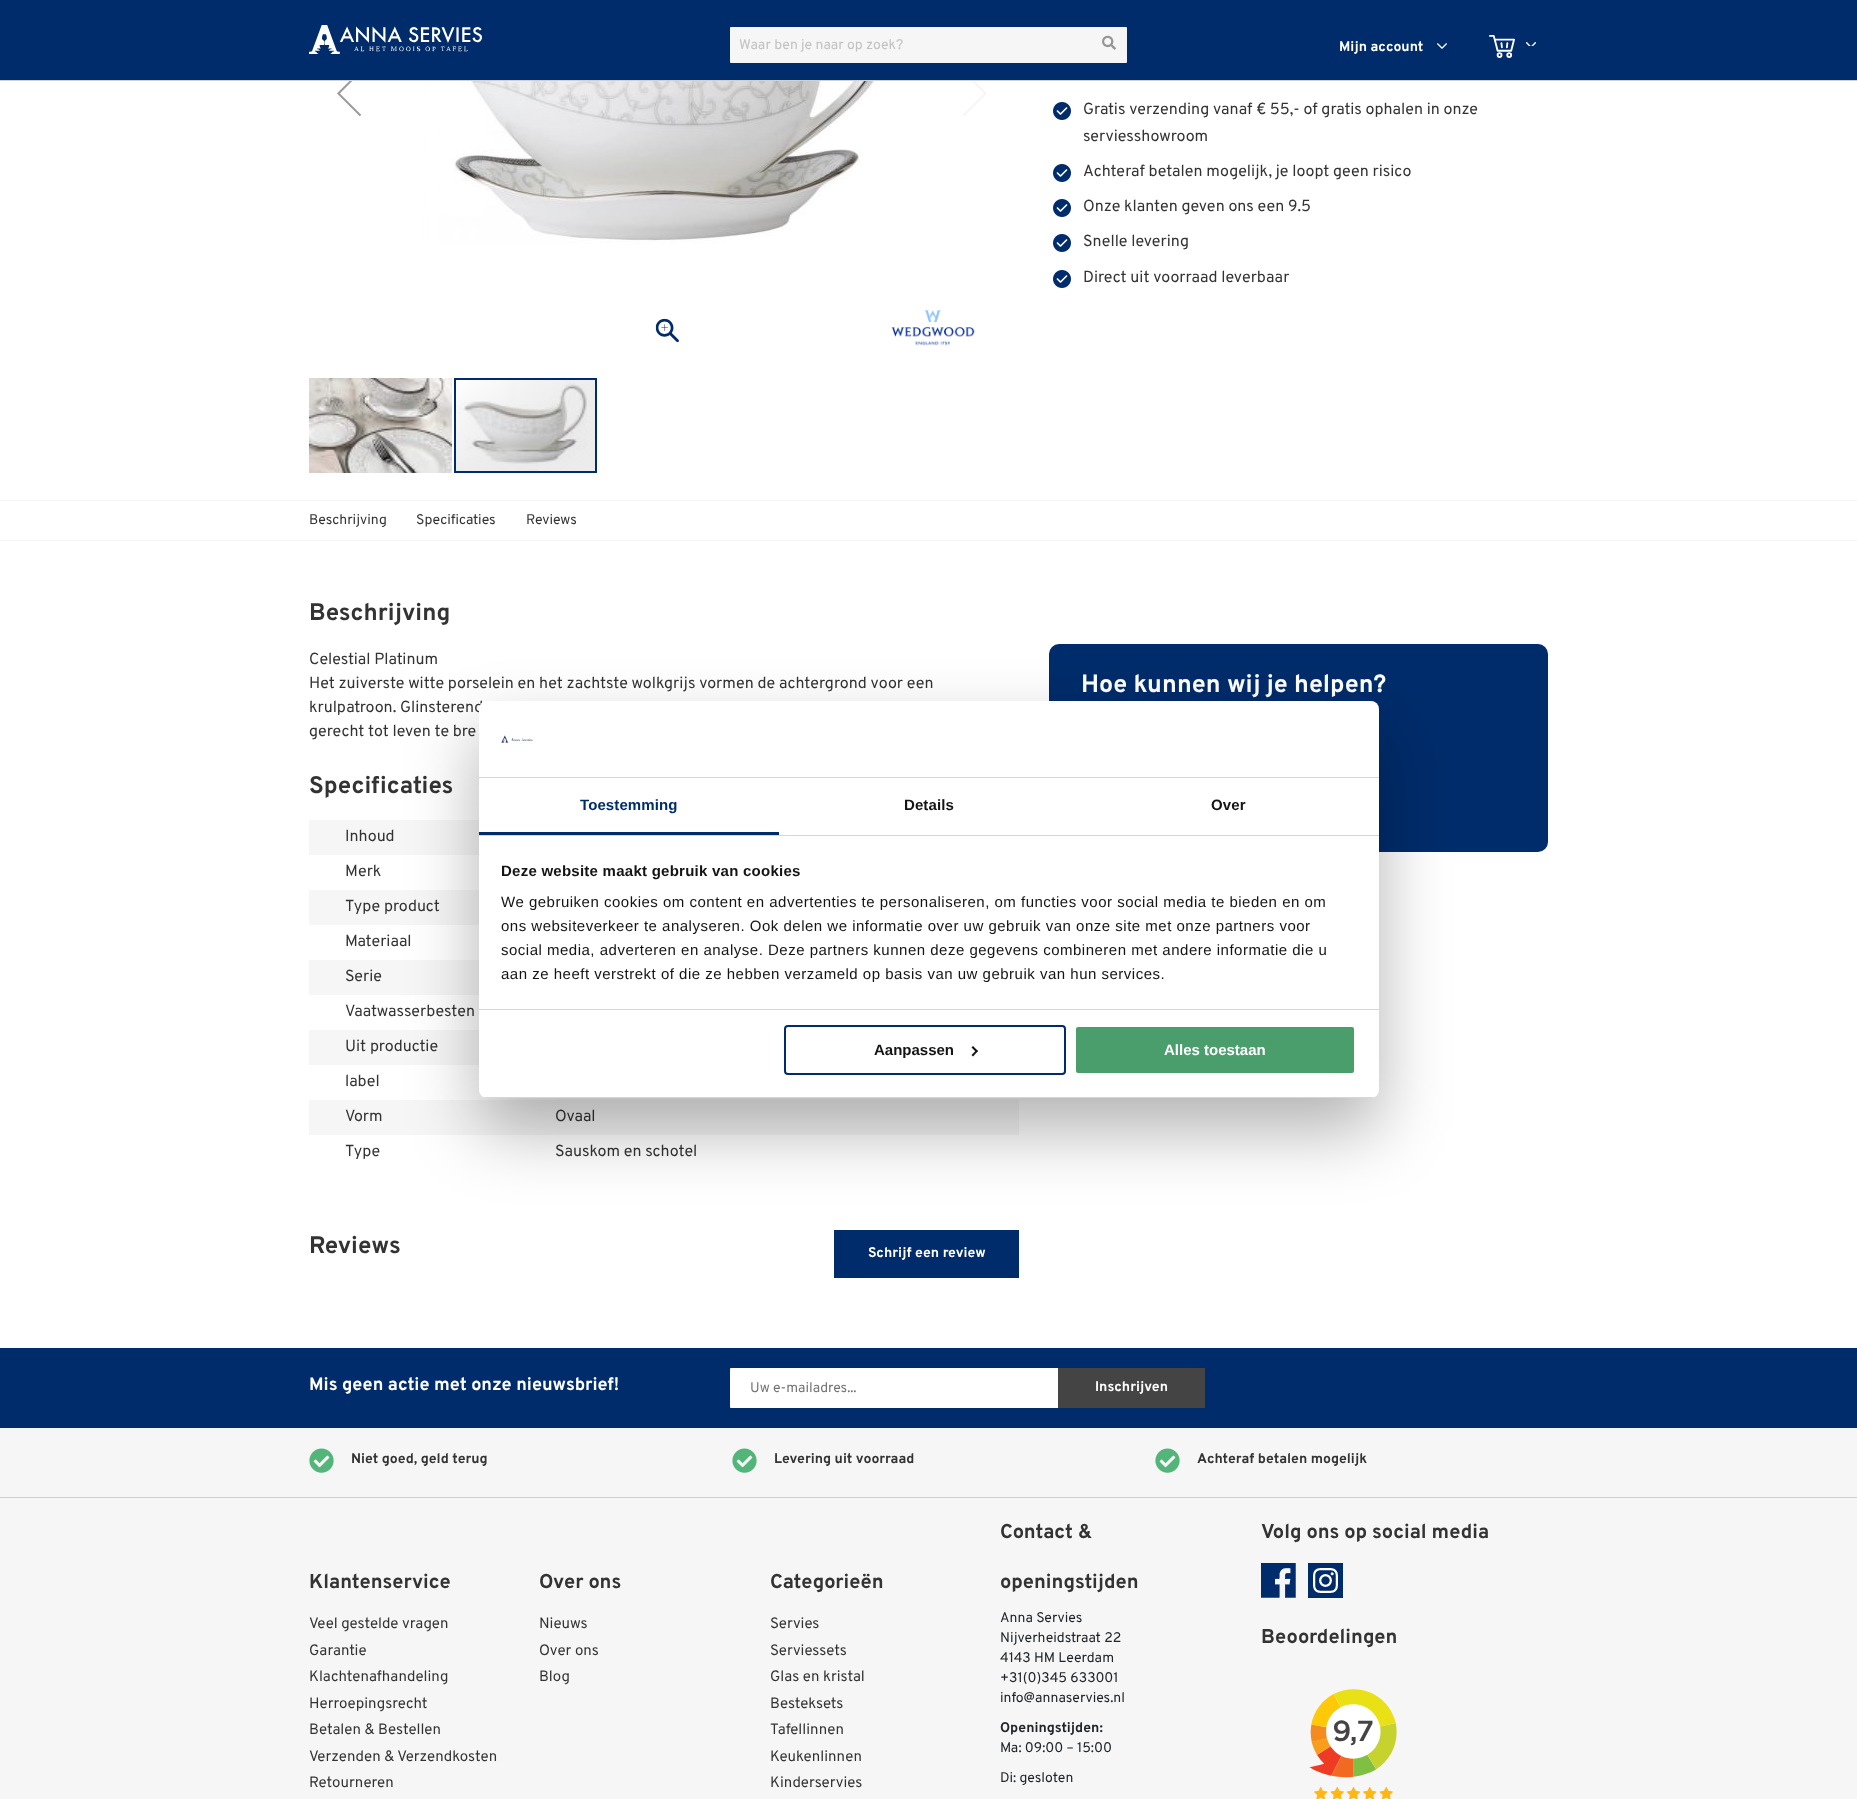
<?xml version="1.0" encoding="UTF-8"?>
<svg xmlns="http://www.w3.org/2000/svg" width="1857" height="1799">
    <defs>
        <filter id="blur1" x="-50%" y="-200%" width="200%" height="500%"><feGaussianBlur stdDeviation="34"/></filter>
        <clipPath id="clip1"><rect x="479" y="701" width="900" height="397" rx="8"/></clipPath>
    </defs>
    <rect width="100%" height="100%" fill="#FFFFFF"/>
    <rect x="0" y="0" width="1857" height="80" fill="#002C6B"/>
    <rect x="0" y="80" width="1857" height="1" fill="#D1D1D1"/>
    <image x="309" y="25" width="173" height="29" href="img_01.png"/>
    <rect x="730" y="27" width="397" height="36" rx="1" fill="#F6F6F6"/>
    <text x="739" y="49" font-family="Overpass" font-size="14" fill="#C2C2C2">Waar ben je naar op zoek?</text>
    <image x="1102" y="35" width="14" height="15" href="img_02.png"/>
    <text x="1339" y="51" font-family="Overpass" font-size="14" font-weight="700" fill="#FFFFFF">Mijn account</text>
    <image x="1437" y="43" width="10" height="6" href="img_03.png"/>
    <image x="1489" y="35" width="26" height="23" href="img_04.png"/>
    <image x="1526" y="42" width="10" height="4" href="img_05.png"/>
    <image x="337" y="81" width="25" height="36" href="img_06.png"/>
    <image x="422" y="81" width="480" height="163" href="img_07.png"/>
    <image x="963" y="81" width="24" height="35" href="img_08.png"/>
    <image x="655" y="318" width="24" height="25" href="img_09.png"/>
    <image x="309" y="378" width="143" height="95" href="img_10.png"/>
    <image x="456" y="380" width="139" height="91" href="img_11.png"/>
    <rect x="455" y="379" width="141" height="93" fill="none" stroke="#002C6B" stroke-width="2"/>
    <image x="891" y="310" width="84" height="36" href="img_12.png"/>
    <image x="1053" y="102" width="18" height="18" href="img_13.png"/>
    <text font-family="Overpass" font-size="16" fill="#333333">
        <tspan x="1083" y="114">Gratis verzending vanaf € 55,- of gratis ophalen in onze</tspan>
        <tspan x="1083" y="141">serviesshowroom</tspan>
    </text>
    <image x="1053" y="164" width="18" height="18" href="img_13.png"/>
    <text x="1083" y="176" font-family="Overpass" font-size="16" fill="#333333">Achteraf betalen mogelijk, je loopt geen risico</text>
    <image x="1053" y="199" width="18" height="18" href="img_13.png"/>
    <text x="1083" y="211" font-family="Overpass" font-size="16" fill="#333333">Onze klanten geven ons een 9.5</text>
    <image x="1053" y="234" width="18" height="18" href="img_13.png"/>
    <text x="1083" y="246" font-family="Overpass" font-size="16" fill="#333333">Snelle levering</text>
    <image x="1053" y="270" width="18" height="18" href="img_13.png"/>
    <text x="1083" y="282" font-family="Overpass" font-size="16" fill="#333333">Direct uit voorraad leverbaar</text>
    <rect x="0" y="500" width="1857" height="1" fill="#F6F6F6"/>
    <rect x="0" y="540" width="1857" height="1" fill="#F6F6F6"/>
    <text x="309" y="524" font-family="Overpass" font-size="14" fill="#333333">Beschrijving</text>
    <text x="416" y="524" font-family="Overpass" font-size="14" fill="#333333">Specificaties</text>
    <text x="526" y="524" font-family="Overpass" font-size="14" fill="#333333">Reviews</text>
    <text x="309" y="620" font-family="Overpass" font-size="24" font-weight="700" fill="#333333">Beschrijving</text>
    <text font-family="Overpass" font-size="16" fill="#333333">
        <tspan x="309" y="664">Celestial Platinum</tspan>
        <tspan x="309" y="688">Het zuiverste witte porselein en het zachtste wolkgrijs vormen de achtergrond voor een</tspan>
        <tspan x="309" y="712">krulpatroon. Glinsterend</tspan>
        <tspan x="309" y="736">gerecht tot leven te bre</tspan>
    </text>
    <text x="309" y="793" font-family="Overpass" font-size="24" font-weight="700" fill="#333333">Specificaties</text>
    <rect x="309" y="820" width="170" height="35" fill="#F6F6F6"/>
    <text x="345" y="841" font-family="Overpass" font-size="16" fill="#333333">Inhoud</text>
    <text x="345" y="876" font-family="Overpass" font-size="16" fill="#333333">Merk</text>
    <rect x="309" y="890" width="170" height="35" fill="#F6F6F6"/>
    <text x="345" y="911" font-family="Overpass" font-size="16" fill="#333333">Type product</text>
    <text x="345" y="946" font-family="Overpass" font-size="16" fill="#333333">Materiaal</text>
    <rect x="309" y="960" width="170" height="35" fill="#F6F6F6"/>
    <text x="345" y="981" font-family="Overpass" font-size="16" fill="#333333">Serie</text>
    <text x="345" y="1016" font-family="Overpass" font-size="16" fill="#333333">Vaatwasserbesten</text>
    <rect x="309" y="1030" width="170" height="35" fill="#F6F6F6"/>
    <text x="345" y="1051" font-family="Overpass" font-size="16" fill="#333333">Uit productie</text>
    <text x="345" y="1086" font-family="Overpass" font-size="16" fill="#333333">label</text>
    <rect x="309" y="1100" width="710" height="35" fill="#F6F6F6"/>
    <text x="345" y="1121" font-family="Overpass" font-size="16" fill="#333333">Vorm</text>
    <text x="555" y="1121" font-family="Overpass" font-size="16" fill="#333333">Ovaal</text>
    <text x="345" y="1156" font-family="Overpass" font-size="16" fill="#333333">Type</text>
    <text x="555" y="1156" font-family="Overpass" font-size="16" fill="#333333">Sauskom en schotel</text>
    <text x="309" y="1253" font-family="Overpass" font-size="24" font-weight="700" fill="#333333">Reviews</text>
    <rect x="834" y="1230" width="185" height="48" fill="#002C6B"/>
    <text x="868" y="1257" font-family="Overpass" font-size="14" font-weight="700" fill="#FFFFFF">Schrijf een review</text>
    <rect x="1049" y="644" width="499" height="208" rx="10" fill="#002C6B"/>
    <text x="1081" y="692" font-family="Overpass" font-size="25" font-weight="700" fill="#FFFFFF">Hoe kunnen wij je helpen?</text>
    <rect x="0" y="1428" width="1857" height="371" fill="#F6F6F6"/>
    <rect x="0" y="1348" width="1857" height="80" fill="#002C6B"/>
    <text x="309" y="1390" font-family="Overpass" font-size="18" font-weight="700" fill="#FFFFFF">Mis geen actie met onze nieuwsbrief!</text>
    <rect x="730" y="1368" width="332" height="40" rx="1" fill="#FFFFFF"/>
    <text x="750" y="1392" font-family="Overpass" font-size="14" fill="#757575">Uw e-mailadres...</text>
    <rect x="1058" y="1368" width="147" height="40" fill="#444444"/>
    <text x="1095" y="1391" font-family="Overpass" font-size="14" font-weight="700" fill="#FFFFFF">Inschrijven</text>
    <rect x="0" y="1497" width="1857" height="1" fill="#CFCFCF"/>
    <image x="309" y="1448" width="25" height="25" href="img_14.png"/>
    <text x="351" y="1463" font-family="Overpass" font-size="14" font-weight="700" fill="#333333">Niet goed, geld terug</text>
    <image x="732" y="1448" width="25" height="25" href="img_14.png"/>
    <text x="774" y="1463" font-family="Overpass" font-size="14" font-weight="700" fill="#333333">Levering uit voorraad</text>
    <image x="1155" y="1448" width="25" height="25" href="img_14.png"/>
    <text x="1197" y="1463" font-family="Overpass" font-size="14" font-weight="700" fill="#333333">Achteraf betalen mogelijk</text>
    <text x="309" y="1588" font-family="Overpass" font-size="20" font-weight="700" fill="#333333">Klantenservice</text>
    <text font-family="Overpass" font-size="15" fill="#333333">
        <tspan x="309" y="1628">Veel gestelde vragen</tspan>
        <tspan x="309" y="1655">Garantie</tspan>
        <tspan x="309" y="1681">Klachtenafhandeling</tspan>
        <tspan x="309" y="1708">Herroepingsrecht</tspan>
        <tspan x="309" y="1734">Betalen &amp; Bestellen</tspan>
        <tspan x="309" y="1761">Verzenden &amp; Verzendkosten</tspan>
        <tspan x="309" y="1787">Retourneren</tspan>
    </text>
    <text x="539" y="1588" font-family="Overpass" font-size="20" font-weight="700" fill="#333333">Over ons</text>
    <text font-family="Overpass" font-size="15" fill="#333333">
        <tspan x="539" y="1628">Nieuws</tspan>
        <tspan x="539" y="1655">Over ons</tspan>
        <tspan x="539" y="1681">Blog</tspan>
    </text>
    <text x="770" y="1588" font-family="Overpass" font-size="20" font-weight="700" fill="#333333">Categorieën</text>
    <text font-family="Overpass" font-size="15" fill="#333333">
        <tspan x="770" y="1628">Servies</tspan>
        <tspan x="770" y="1655">Serviessets</tspan>
        <tspan x="770" y="1681">Glas en kristal</tspan>
        <tspan x="770" y="1708">Besteksets</tspan>
        <tspan x="770" y="1734">Tafellinnen</tspan>
        <tspan x="770" y="1761">Keukenlinnen</tspan>
        <tspan x="770" y="1787">Kinderservies</tspan>
    </text>
    <text x="1000" y="1538" font-family="Overpass" font-size="20" font-weight="700" fill="#333333">Contact &amp;</text>
    <text x="1000" y="1588" font-family="Overpass" font-size="20" font-weight="700" fill="#333333">openingstijden</text>
    <text font-family="Overpass" font-size="14" fill="#212529">
        <tspan x="1000" y="1622">Anna Servies</tspan>
        <tspan x="1000" y="1642">Nijverheidstraat 22</tspan>
        <tspan x="1000" y="1662">4143 HM Leerdam</tspan>
        <tspan x="1000" y="1682">+31(0)345 633001</tspan>
        <tspan x="1000" y="1702">info@annaservies.nl</tspan>
    </text>
    <text x="1000" y="1732" font-family="Overpass" font-size="14" font-weight="700" fill="#212529">Openingstijden:</text>
    <text x="1000" y="1752" font-family="Overpass" font-size="14" fill="#212529">Ma: 09:00 – 15:00</text>
    <text x="1000" y="1782" font-family="Overpass" font-size="14" fill="#212529">Di: gesloten</text>
    <text x="1261" y="1538" font-family="Overpass" font-size="20" font-weight="700" fill="#333333">Volg ons op social media</text>
    <image x="1261" y="1563" width="35" height="35" href="img_15.png"/>
    <image x="1308" y="1563" width="35" height="35" href="img_16.png"/>
    <text x="1261" y="1643" font-family="Overpass" font-size="20" font-weight="700" fill="#333333">Beoordelingen</text>
    <image x="1309" y="1689" width="88" height="110" href="img_17.png"/>
    <rect x="479" y="733" width="900" height="397" rx="8" fill="#000000" fill-opacity="0.3" filter="url(#blur1)"/>
    <rect x="479" y="701" width="900" height="397" rx="8" fill="#FFFFFF"/>
    <rect x="479" y="777" width="900" height="1" fill="#D6D6D6"/>
    <image x="501" y="735" width="32" height="8" href="img_18.png"/>
    <rect x="479" y="835" width="900" height="1" fill="#D6D6D6"/>
    <rect x="479" y="832" width="300" height="3" fill="#002C6B"/>
    <text x="580" y="810" font-family="Liberation Sans" font-size="15" font-weight="700" letter-spacing="0.1" fill="#002C6B">Toestemming</text>
    <text x="904" y="810" font-family="Liberation Sans" font-size="15" font-weight="700" letter-spacing="0.1" fill="#141414">Details</text>
    <text x="1211" y="810" font-family="Liberation Sans" font-size="15" font-weight="700" letter-spacing="0.1" fill="#141414">Over</text>
    <rect x="479" y="1009" width="900" height="1" fill="#D6D6D6"/>
    <text x="501" y="876" font-family="Liberation Sans" font-size="15" font-weight="700" letter-spacing="0.25" fill="#141414">Deze website maakt gebruik van cookies</text>
    <text font-family="Liberation Sans" font-size="15" letter-spacing="0.5" fill="#141414">
        <tspan x="501" y="907">We gebruiken cookies om content en advertenties te personaliseren, om functies voor social media te bieden en om</tspan>
        <tspan x="501" y="931">ons websiteverkeer te analyseren. Ook delen we informatie over uw gebruik van onze site met onze partners voor</tspan>
        <tspan x="501" y="955">social media, adverteren en analyse. Deze partners kunnen deze gegevens combineren met andere informatie die u</tspan>
        <tspan x="501" y="979">aan ze heeft verstrekt of die ze hebben verzameld op basis van uw gebruik van hun services.</tspan>
    </text>
    <g clip-path="url(#clip1)">
        <rect x="479" y="1097" width="900" height="1" fill="#D6D6D6"/>
    </g>
    <rect x="785" y="1026" width="280" height="48" rx="3" fill="none" stroke="#002C6B" stroke-width="2"/>
    <text x="874" y="1055" font-family="Liberation Sans" font-size="15" font-weight="700" fill="#141414">Aanpassen</text>
    <path d="M 973 1046 L 978 1051 L 976.5 1052.5 L 971.5 1047.5 Z" fill="#141414"/>
    <path d="M 976.5 1050 L 978 1051 L 973 1056.5 L 971.5 1055 Z" fill="#141414"/>
    <rect x="1075" y="1026" width="280" height="48" rx="3" fill="#4A9E6C" stroke="#FFFFFF" stroke-width="2"/>
    <text x="1164" y="1055" font-family="Liberation Sans" font-size="15" font-weight="700" fill="#FFFFFF">Alles toestaan</text>
</svg>
